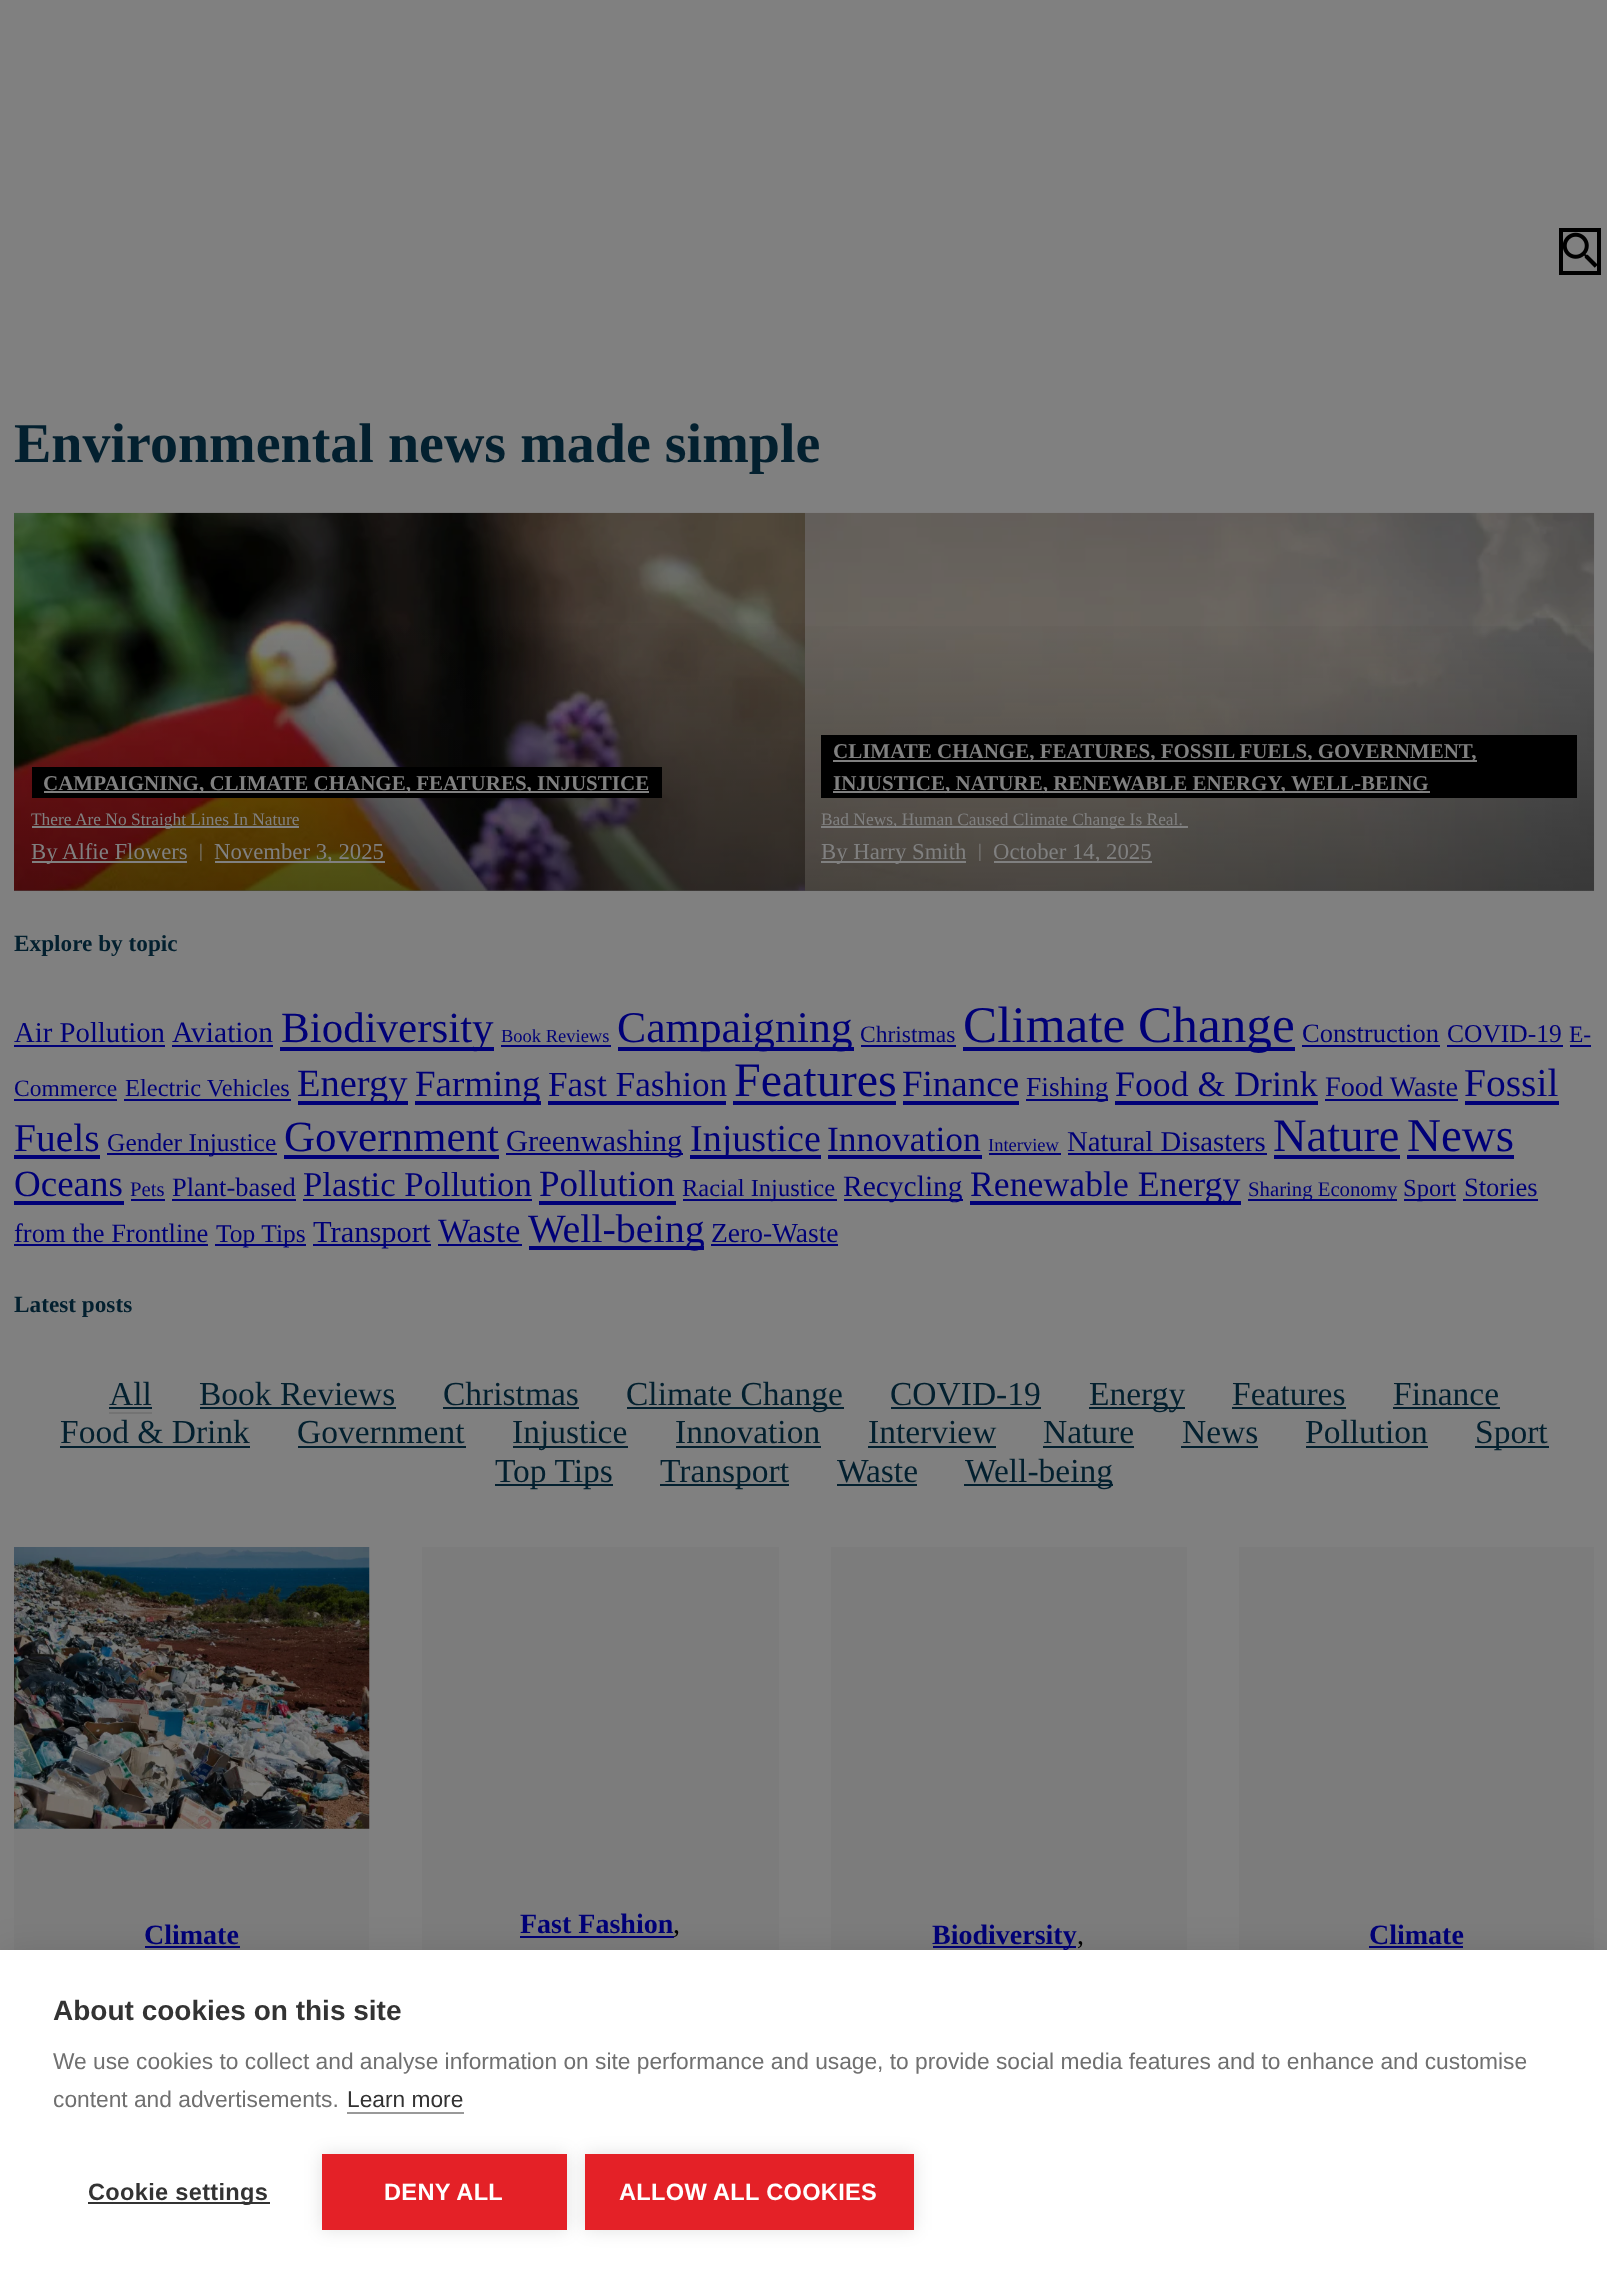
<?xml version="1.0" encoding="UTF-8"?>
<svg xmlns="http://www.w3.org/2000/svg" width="1607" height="2273">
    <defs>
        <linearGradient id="g1" gradientUnits="userSpaceOnUse" x1="410" y1="513" x2="410" y2="891"><stop offset="0" stop-color="#000000" stop-opacity="0"/><stop offset="0.25" stop-color="#000000" stop-opacity="0"/><stop offset="1" stop-color="#000000" stop-opacity="0.4"/></linearGradient>
        <linearGradient id="g2" gradientUnits="userSpaceOnUse" x1="1200" y1="513" x2="1200" y2="891"><stop offset="0" stop-color="#000000" stop-opacity="0"/><stop offset="0.25" stop-color="#000000" stop-opacity="0"/><stop offset="1" stop-color="#000000" stop-opacity="0.4"/></linearGradient>
        <filter id="blur1" x="-50%" y="-200%" width="200%" height="500%"><feGaussianBlur stdDeviation="17.5"/></filter>
        <filter id="blur2" x="-50%" y="-200%" width="200%" height="500%"><feGaussianBlur stdDeviation="9"/></filter>
    </defs>
    <rect width="100%" height="100%" fill="#808080"/>
    <rect x="1561" y="230" width="38" height="43" fill="none" stroke="#000000" stroke-width="4"/>
    <image x="1563" y="232" width="34" height="36" href="img_01.png"/>
    <text x="14" y="462" font-family="Liberation Serif" font-size="56" font-weight="700" fill="#03202F">Environmental news made simple</text>
    <image x="14" y="512" width="791" height="379" href="img_02.png"/>
    <rect x="14" y="623" width="791" height="268" fill="url(#g1)"/>
    <rect x="32" y="767" width="630" height="31" fill="#000000"/>
    <rect x="44" y="791" width="605" height="2" fill="#808080"/>
    <text x="43" y="790" font-family="Liberation Serif" font-size="21" font-weight="700" fill="#808080">CAMPAIGNING, CLIMATE CHANGE, FEATURES, INJUSTICE</text>
    <rect x="32" y="826" width="267" height="2" fill="#808080"/>
    <text x="31" y="825" font-family="Liberation Serif" font-size="17.4" fill="#808080">There Are No Straight Lines In Nature</text>
    <rect x="32" y="861" width="155" height="2" fill="#808080"/>
    <text x="31" y="859" font-family="Liberation Serif" font-size="22.75" fill="#808080">By Alfie Flowers</text>
    <text x="199" y="857" font-family="Liberation Serif" font-size="19" fill="#808080">|</text>
    <rect x="215" y="861" width="170" height="2" fill="#808080"/>
    <text x="214" y="859" font-family="Liberation Serif" font-size="22.75" fill="#808080">November 3, 2025</text>
    <image x="805" y="512" width="790" height="379" href="img_03.png"/>
    <rect x="805" y="626" width="789" height="265" fill="url(#g2)"/>
    <rect x="821" y="735" width="756" height="63" fill="#000000"/>
    <rect x="833" y="760" width="644" height="2" fill="#808080"/>
    <text x="833" y="758" font-family="Liberation Serif" font-size="21" font-weight="700" fill="#808080">CLIMATE CHANGE, FEATURES, FOSSIL FUELS, GOVERNMENT,</text>
    <rect x="833" y="791" width="597" height="2" fill="#808080"/>
    <text x="833" y="790" font-family="Liberation Serif" font-size="21" font-weight="700" fill="#808080">INJUSTICE, NATURE, RENEWABLE ENERGY,</text>
    <text x="1291" y="790" font-family="Liberation Serif" font-size="21" font-weight="700" fill="#808080">WELL-BEING</text>
    <rect x="821" y="826" width="367" height="2" fill="#808080"/>
    <text x="821" y="825" font-family="Liberation Serif" font-size="17.4" fill="#808080">Bad News, Human Caused Climate Change Is Real.</text>
    <rect x="821" y="861" width="145" height="2" fill="#808080"/>
    <text x="821" y="859" font-family="Liberation Serif" font-size="22.75" fill="#808080">By Harry Smith</text>
    <text x="978" y="857" font-family="Liberation Serif" font-size="19" fill="#808080">|</text>
    <rect x="994" y="861" width="158" height="2" fill="#808080"/>
    <text x="993" y="859" font-family="Liberation Serif" font-size="22.75" fill="#808080">October 14, 2025</text>
    <text x="14" y="951" font-family="Liberation Serif" font-size="23.25" font-weight="700" fill="#03202F">Explore by topic</text>
    <text x="14" y="1042" font-family="Liberation Serif" font-size="28.75" fill="#000077">Air Pollution</text>
    <rect x="14" y="1045" width="151" height="2" fill="#000077"/>
    <text x="172" y="1042" font-family="Liberation Serif" font-size="29.5" fill="#000077">Aviation</text>
    <rect x="172" y="1045" width="101" height="2" fill="#000077"/>
    <rect x="280" y="1047" width="214" height="4" fill="#000077"/>
    <text x="281" y="1042" font-family="Liberation Serif" font-size="43" fill="#000077">Biodiversity</text>
    <text x="501" y="1042" font-family="Liberation Serif" font-size="18.5" fill="#000077">Book Reviews</text>
    <rect x="501" y="1045" width="110" height="2" fill="#000077"/>
    <rect x="618" y="1047" width="236" height="4" fill="#000077"/>
    <text x="617" y="1042" font-family="Liberation Serif" font-size="43.75" fill="#000077">Campaigning</text>
    <text x="860" y="1042" font-family="Liberation Serif" font-size="23.5" fill="#000077">Christmas</text>
    <rect x="861" y="1045" width="95" height="2" fill="#000077"/>
    <rect x="963" y="1047" width="332" height="4" fill="#000077"/>
    <text x="963" y="1042" font-family="Liberation Serif" font-size="51.25" fill="#000077">Climate Change</text>
    <text x="1302" y="1042" font-family="Liberation Serif" font-size="26.5" fill="#000077">Construction</text>
    <rect x="1302" y="1045" width="138" height="2" fill="#000077"/>
    <text x="1447" y="1042" font-family="Liberation Serif" font-size="25.5" fill="#000077">COVID-19</text>
    <rect x="1447" y="1045" width="116" height="2" fill="#000077"/>
    <text x="1569" y="1042" font-family="Liberation Serif" font-size="23.5" fill="#000077">E-</text>
    <rect x="1570" y="1045" width="21" height="2" fill="#000077"/>
    <text x="14" y="1096" font-family="Liberation Serif" font-size="23.5" fill="#000077">Commerce</text>
    <rect x="14" y="1099" width="103" height="2" fill="#000077"/>
    <text x="125" y="1096" font-family="Liberation Serif" font-size="24.5" fill="#000077">Electric Vehicles</text>
    <rect x="124" y="1099" width="167" height="2" fill="#000077"/>
    <rect x="298" y="1101" width="110" height="4" fill="#000077"/>
    <text x="297" y="1096" font-family="Liberation Serif" font-size="38.5" fill="#000077">Energy</text>
    <rect x="415" y="1101" width="126" height="4" fill="#000077"/>
    <text x="415" y="1096" font-family="Liberation Serif" font-size="37" fill="#000077">Farming</text>
    <text x="548" y="1096" font-family="Liberation Serif" font-size="35.25" fill="#000077">Fast Fashion</text>
    <rect x="548" y="1101" width="178" height="4" fill="#000077"/>
    <text x="734" y="1096" font-family="Liberation Serif" font-size="48" fill="#000077">Features</text>
    <rect x="733" y="1101" width="163" height="4" fill="#000077"/>
    <text x="902" y="1096" font-family="Liberation Serif" font-size="37" fill="#000077">Finance</text>
    <rect x="903" y="1101" width="116" height="4" fill="#000077"/>
    <rect x="1026" y="1099" width="82" height="2" fill="#000077"/>
    <text x="1026" y="1096" font-family="Liberation Serif" font-size="27.5" fill="#000077">Fishing</text>
    <text x="1115" y="1096" font-family="Liberation Serif" font-size="35.75" fill="#000077">Food &amp; Drink</text>
    <rect x="1115" y="1101" width="203" height="4" fill="#000077"/>
    <text x="1325" y="1096" font-family="Liberation Serif" font-size="28.25" fill="#000077">Food Waste</text>
    <rect x="1325" y="1099" width="133" height="2" fill="#000077"/>
    <text x="1464" y="1096" font-family="Liberation Serif" font-size="39.5" fill="#000077">Fossil</text>
    <rect x="1465" y="1101" width="94" height="4" fill="#000077"/>
    <text x="14" y="1151" font-family="Liberation Serif" font-size="39.5" fill="#000077">Fuels</text>
    <rect x="14" y="1155" width="86" height="4" fill="#000077"/>
    <rect x="107" y="1153" width="170" height="2" fill="#000077"/>
    <text x="107" y="1151" font-family="Liberation Serif" font-size="25.5" fill="#000077">Gender Injustice</text>
    <text x="284" y="1151" font-family="Liberation Serif" font-size="43" fill="#000077">Government</text>
    <rect x="284" y="1155" width="215" height="4" fill="#000077"/>
    <rect x="506" y="1153" width="177" height="2" fill="#000077"/>
    <text x="506" y="1151" font-family="Liberation Serif" font-size="30.5" fill="#000077">Greenwashing</text>
    <rect x="690" y="1155" width="131" height="4" fill="#000077"/>
    <text x="690" y="1151" font-family="Liberation Serif" font-size="38" fill="#000077">Injustice</text>
    <text x="827" y="1151" font-family="Liberation Serif" font-size="35.5" fill="#000077">Innovation</text>
    <rect x="828" y="1155" width="154" height="4" fill="#000077"/>
    <text x="988" y="1151" font-family="Liberation Serif" font-size="18.5" fill="#000077">Interview</text>
    <rect x="989" y="1153" width="72" height="2" fill="#000077"/>
    <text x="1067" y="1151" font-family="Liberation Serif" font-size="28.75" fill="#000077">Natural Disasters</text>
    <rect x="1068" y="1153" width="199" height="2" fill="#000077"/>
    <text x="1273" y="1151" font-family="Liberation Serif" font-size="46.5" fill="#000077">Nature</text>
    <rect x="1274" y="1155" width="126" height="4" fill="#000077"/>
    <text x="1407" y="1151" font-family="Liberation Serif" font-size="47" fill="#000077">News</text>
    <rect x="1407" y="1155" width="107" height="4" fill="#000077"/>
    <text x="14" y="1196" font-family="Liberation Serif" font-size="37" fill="#000077">Oceans</text>
    <rect x="14" y="1201" width="110" height="4" fill="#000077"/>
    <text x="130" y="1196" font-family="Liberation Serif" font-size="20.75" fill="#000077">Pets</text>
    <rect x="131" y="1199" width="34" height="2" fill="#000077"/>
    <text x="172" y="1196" font-family="Liberation Serif" font-size="26.5" fill="#000077">Plant-based</text>
    <rect x="172" y="1199" width="124" height="2" fill="#000077"/>
    <text x="303" y="1196" font-family="Liberation Serif" font-size="34.75" fill="#000077">Plastic Pollution</text>
    <rect x="303" y="1199" width="229" height="2" fill="#000077"/>
    <text x="539" y="1196" font-family="Liberation Serif" font-size="37" fill="#000077">Pollution</text>
    <rect x="539" y="1201" width="137" height="4" fill="#000077"/>
    <rect x="683" y="1199" width="154" height="2" fill="#000077"/>
    <text x="682" y="1196" font-family="Liberation Serif" font-size="24.5" fill="#000077">Racial Injustice</text>
    <rect x="844" y="1199" width="119" height="2" fill="#000077"/>
    <text x="843" y="1196" font-family="Liberation Serif" font-size="29.5" fill="#000077">Recycling</text>
    <rect x="970" y="1201" width="271" height="4" fill="#000077"/>
    <text x="970" y="1196" font-family="Liberation Serif" font-size="35.75" fill="#000077">Renewable Energy</text>
    <rect x="1248" y="1199" width="149" height="2" fill="#000077"/>
    <text x="1248" y="1196" font-family="Liberation Serif" font-size="20.75" fill="#000077">Sharing Economy</text>
    <rect x="1404" y="1199" width="52" height="2" fill="#000077"/>
    <text x="1403" y="1196" font-family="Liberation Serif" font-size="24.5" fill="#000077">Sport</text>
    <text x="1464" y="1196" font-family="Liberation Serif" font-size="26.5" fill="#000077">Stories</text>
    <rect x="1463" y="1199" width="75" height="2" fill="#000077"/>
    <text x="14" y="1242" font-family="Liberation Serif" font-size="26.5" fill="#000077">from the Frontline</text>
    <rect x="14" y="1244" width="194" height="2" fill="#000077"/>
    <rect x="215" y="1244" width="91" height="2" fill="#000077"/>
    <text x="216" y="1242" font-family="Liberation Serif" font-size="25.5" fill="#000077">Top Tips</text>
    <rect x="313" y="1244" width="118" height="2" fill="#000077"/>
    <text x="313" y="1242" font-family="Liberation Serif" font-size="30.5" fill="#000077">Transport</text>
    <text x="438" y="1242" font-family="Liberation Serif" font-size="34" fill="#000077">Waste</text>
    <rect x="438" y="1244" width="84" height="2" fill="#000077"/>
    <rect x="529" y="1246" width="175" height="4" fill="#000077"/>
    <text x="528" y="1242" font-family="Liberation Serif" font-size="40" fill="#000077">Well-being</text>
    <text x="711" y="1242" font-family="Liberation Serif" font-size="27.5" fill="#000077">Zero-Waste</text>
    <rect x="711" y="1244" width="127" height="2" fill="#000077"/>
    <text x="14" y="1312" font-family="Liberation Serif" font-size="23.25" font-weight="700" fill="#03202F">Latest posts</text>
    <text x="109" y="1405" font-family="Liberation Serif" font-size="33.5" fill="#03202F">All</text>
    <rect x="109" y="1412" width="43" height="2" fill="#737373"/>
    <rect x="109" y="1407" width="43" height="2" fill="#03202F"/>
    <text x="199" y="1405" font-family="Liberation Serif" font-size="33.5" fill="#03202F">Book Reviews</text>
    <rect x="200" y="1407" width="196" height="2" fill="#03202F"/>
    <text x="443" y="1405" font-family="Liberation Serif" font-size="33.5" fill="#03202F">Christmas</text>
    <rect x="443" y="1407" width="136" height="2" fill="#03202F"/>
    <rect x="627" y="1407" width="217" height="2" fill="#03202F"/>
    <text x="626" y="1405" font-family="Liberation Serif" font-size="33.5" fill="#03202F">Climate Change</text>
    <text x="890" y="1405" font-family="Liberation Serif" font-size="33.5" fill="#03202F">COVID-19</text>
    <rect x="891" y="1407" width="150" height="2" fill="#03202F"/>
    <rect x="1089" y="1407" width="96" height="2" fill="#03202F"/>
    <text x="1089" y="1405" font-family="Liberation Serif" font-size="33.5" fill="#03202F">Energy</text>
    <text x="1232" y="1405" font-family="Liberation Serif" font-size="33.5" fill="#03202F">Features</text>
    <rect x="1232" y="1407" width="114" height="2" fill="#03202F"/>
    <text x="1393" y="1405" font-family="Liberation Serif" font-size="33.5" fill="#03202F">Finance</text>
    <rect x="1393" y="1407" width="107" height="2" fill="#03202F"/>
    <text x="60" y="1443" font-family="Liberation Serif" font-size="33.5" fill="#03202F">Food &amp; Drink</text>
    <rect x="60" y="1446" width="190" height="2" fill="#03202F"/>
    <text x="297" y="1443" font-family="Liberation Serif" font-size="33.5" fill="#03202F">Government</text>
    <rect x="298" y="1446" width="168" height="2" fill="#03202F"/>
    <rect x="513" y="1446" width="115" height="2" fill="#03202F"/>
    <text x="512" y="1443" font-family="Liberation Serif" font-size="33.5" fill="#03202F">Injustice</text>
    <text x="675" y="1443" font-family="Liberation Serif" font-size="33.5" fill="#03202F">Innovation</text>
    <rect x="676" y="1446" width="145" height="2" fill="#03202F"/>
    <text x="868" y="1443" font-family="Liberation Serif" font-size="33.5" fill="#03202F">Interview</text>
    <rect x="868" y="1446" width="128" height="2" fill="#03202F"/>
    <text x="1043" y="1443" font-family="Liberation Serif" font-size="33.5" fill="#03202F">Nature</text>
    <rect x="1043" y="1446" width="91" height="2" fill="#03202F"/>
    <text x="1182" y="1443" font-family="Liberation Serif" font-size="33.5" fill="#03202F">News</text>
    <rect x="1181" y="1446" width="77" height="2" fill="#03202F"/>
    <text x="1305" y="1443" font-family="Liberation Serif" font-size="33.5" fill="#03202F">Pollution</text>
    <rect x="1306" y="1446" width="122" height="2" fill="#03202F"/>
    <rect x="1475" y="1446" width="74" height="2" fill="#03202F"/>
    <text x="1475" y="1443" font-family="Liberation Serif" font-size="33.5" fill="#03202F">Sport</text>
    <rect x="495" y="1484" width="118" height="2" fill="#03202F"/>
    <text x="495" y="1482" font-family="Liberation Serif" font-size="33.5" fill="#03202F">Top Tips</text>
    <rect x="660" y="1484" width="129" height="2" fill="#03202F"/>
    <text x="660" y="1482" font-family="Liberation Serif" font-size="33.5" fill="#03202F">Transport</text>
    <text x="837" y="1482" font-family="Liberation Serif" font-size="33.5" fill="#03202F">Waste</text>
    <rect x="837" y="1484" width="80" height="2" fill="#03202F"/>
    <rect x="964" y="1484" width="149" height="2" fill="#03202F"/>
    <text x="965" y="1482" font-family="Liberation Serif" font-size="33.5" fill="#03202F">Well-being</text>
    <rect x="14" y="1828" width="355" height="122" fill="#7C7C7C"/>
    <image x="14" y="1547" width="356" height="282" href="img_04.png"/>
    <text x="144" y="1944" font-family="Liberation Serif" font-size="28" font-weight="700" fill="#000077">Climate</text>
    <rect x="145" y="1946" width="95" height="2" fill="#000077"/>
    <rect x="422" y="1547" width="357" height="403" fill="#7C7C7C"/>
    <text x="520" y="1933" font-family="Liberation Serif" font-size="28" font-weight="700" fill="#000077">Fast Fashion</text>
    <text x="673" y="1933" font-family="Liberation Serif" font-size="28" fill="#000000">,</text>
    <rect x="520" y="1936" width="154" height="2" fill="#000077"/>
    <rect x="831" y="1547" width="356" height="403" fill="#7C7C7C"/>
    <rect x="933" y="1946" width="143" height="2" fill="#000077"/>
    <text x="932" y="1944" font-family="Liberation Serif" font-size="28" font-weight="700" fill="#000077">Biodiversity</text>
    <text x="1077" y="1944" font-family="Liberation Serif" font-size="28" fill="#000000">,</text>
    <rect x="1239" y="1547" width="355" height="403" fill="#7C7C7C"/>
    <text x="1369" y="1944" font-family="Liberation Serif" font-size="28" font-weight="700" fill="#000077">Climate</text>
    <rect x="1369" y="1946" width="94" height="2" fill="#000077"/>
    <rect x="0" y="1950" width="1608" height="323" fill="#000000" fill-opacity="0.1" filter="url(#blur1)"/>
    <rect x="0" y="1950" width="1607" height="323" fill="#FFFFFF"/>
    <text x="53" y="2020" font-family="Liberation Sans" font-size="28" font-weight="700" fill="#333333">About cookies on this site</text>
    <text font-family="Liberation Sans" font-size="22.75" fill="#707070">
        <tspan x="53" y="2069">We use cookies to collect and analyse information on site performance and usage, to provide social media features and to enhance and customise</tspan>
        <tspan x="53" y="2107">content and advertisements.</tspan>
    </text>
    <text x="347" y="2107" font-family="Liberation Sans" font-size="22.75" fill="#333333">Learn more</text>
    <rect x="347" y="2112" width="117" height="2" fill="#999999"/>
    <rect x="88" y="2202" width="182" height="2" fill="#333333"/>
    <text x="88" y="2200" font-family="Liberation Sans" font-size="23.6" font-weight="700" letter-spacing="0.3" fill="#333333">Cookie settings</text>
    <rect x="322" y="2154" width="245" height="76" fill="#000000" fill-opacity="0.12" filter="url(#blur2)"/>
    <rect x="322" y="2154" width="245" height="76" fill="#E42127"/>
    <text x="384" y="2200" font-family="Liberation Sans" font-size="23.6" font-weight="700" letter-spacing="0.3" fill="#FFFFFF">DENY ALL</text>
    <rect x="585" y="2154" width="329" height="76" fill="#000000" fill-opacity="0.12" filter="url(#blur2)"/>
    <rect x="585" y="2154" width="329" height="76" fill="#E42127"/>
    <text x="619" y="2200" font-family="Liberation Sans" font-size="23.6" font-weight="700" letter-spacing="0.3" fill="#FFFFFF">ALLOW ALL COOKIES</text>
</svg>
